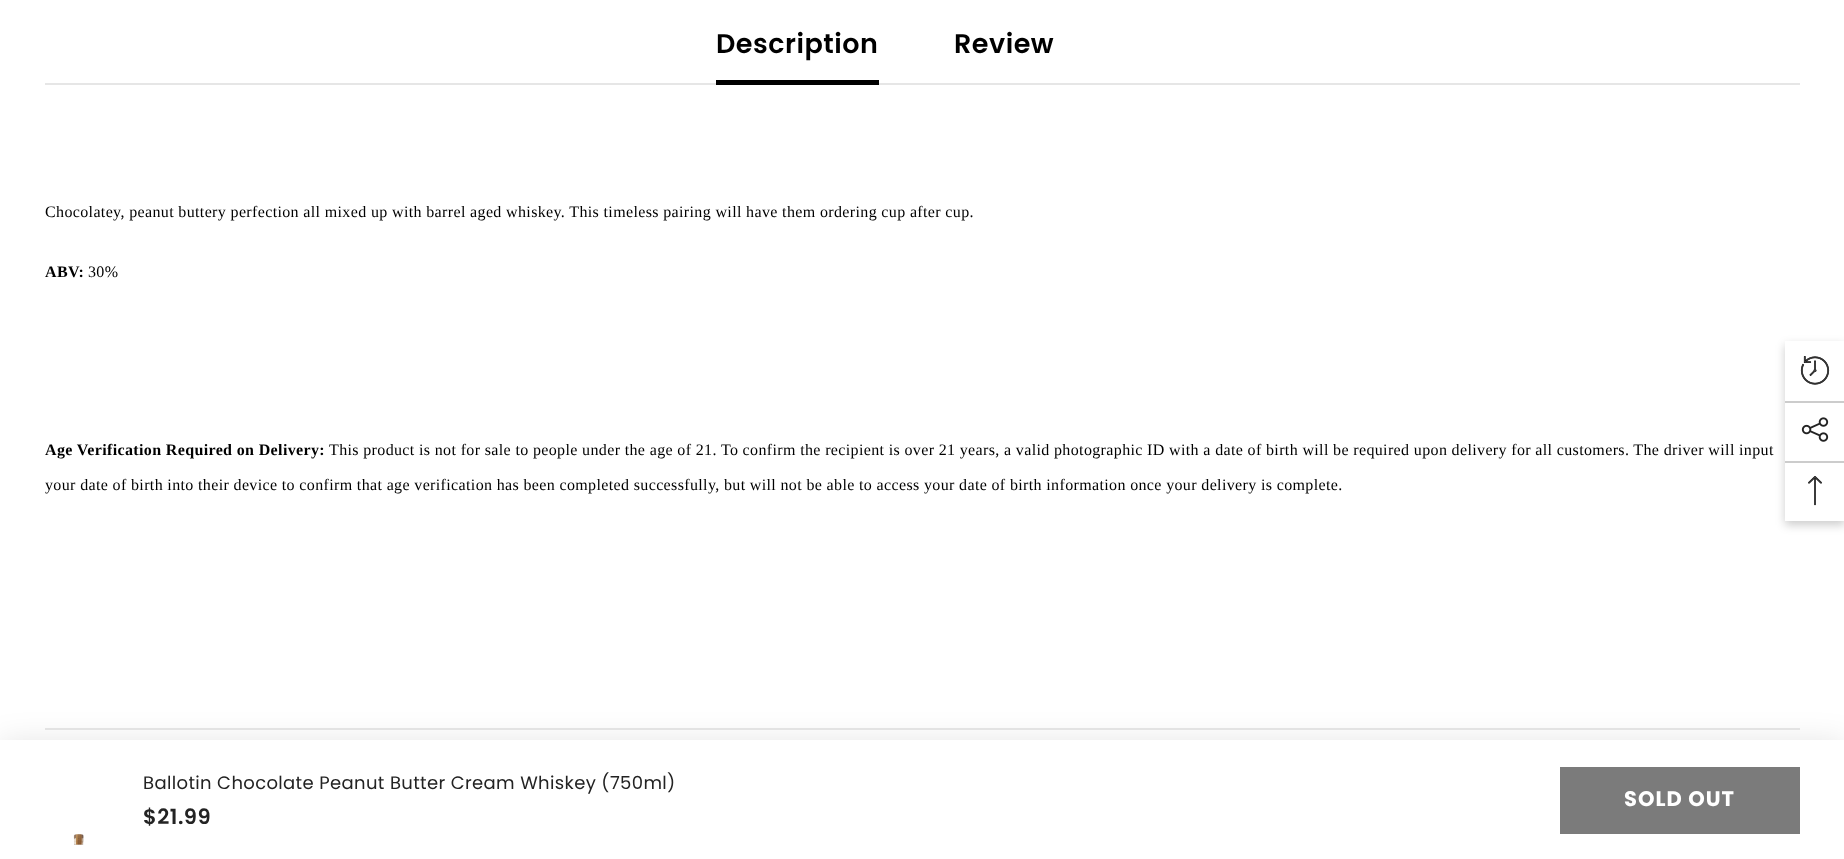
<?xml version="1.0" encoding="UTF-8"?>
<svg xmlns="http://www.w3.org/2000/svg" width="1844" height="859">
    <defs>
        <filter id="blur1" x="-50%" y="-200%" width="200%" height="500%"><feGaussianBlur stdDeviation="15"/></filter>
        <filter id="blur2" x="-50%" y="-200%" width="200%" height="500%"><feGaussianBlur stdDeviation="5"/></filter>
    </defs>
    <rect width="100%" height="100%" fill="#FFFFFF"/>
    <rect x="45" y="83" width="1755" height="2" fill="#E6E6E6"/>
    <text x="716" y="53" font-family="Poppins" font-size="27" font-weight="600" letter-spacing="0.5" fill="#000000">Description</text>
    <rect x="716" y="80" width="163" height="5" fill="#000000"/>
    <text x="954" y="53" font-family="Poppins" font-size="27" font-weight="600" letter-spacing="0.5" fill="#000000">Review</text>
    <text x="45" y="217" font-family="Liberation Serif" font-size="16" letter-spacing="0.36" fill="#000000">Chocolatey, peanut buttery perfection all mixed up with barrel aged whiskey. This timeless pairing will have them ordering cup after cup.</text>
    <text x="45" y="277" font-family="Liberation Serif" font-size="16" font-weight="700" letter-spacing="0.36" fill="#000000">ABV:</text>
    <text x="88" y="277" font-family="Liberation Serif" font-size="16" letter-spacing="0.36" fill="#000000">30%</text>
    <text x="45" y="455" font-family="Liberation Serif" font-size="16" font-weight="700" letter-spacing="0.36" fill="#000000">Age Verification Required on Delivery:</text>
    <text x="329" y="455" font-family="Liberation Serif" font-size="16" letter-spacing="0.36" fill="#000000">This product is not for sale to people under the age of 21. To confirm the recipient is over 21 years, a valid photographic ID with a date of birth will be required upon delivery for all customers. The driver will input</text>
    <text x="45" y="490" font-family="Liberation Serif" font-size="16" letter-spacing="0.36" fill="#000000">your date of birth into their device to confirm that age verification has been completed successfully, but will not be able to access your date of birth information once your delivery is complete.</text>
    <rect x="45" y="728" width="1755" height="2" fill="#E8E8E8"/>
    <rect x="0" y="741" width="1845" height="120" fill="#000000" fill-opacity="0.1" filter="url(#blur1)"/>
    <rect x="0" y="740" width="1844" height="119" fill="#FFFFFF"/>
    <text x="143" y="789" font-family="Poppins" font-size="18" letter-spacing="0.36" fill="#232323">Ballotin Chocolate Peanut Butter Cream Whiskey (750ml)</text>
    <text x="143" y="824" font-family="Poppins" font-size="21" font-weight="600" letter-spacing="0.5" fill="#232323">$21.99</text>
    <image x="73" y="834" width="11" height="11" href="img_01.png"/>
    <rect x="1560" y="767" width="240" height="67" fill="#7B7B7B"/>
    <text x="1624" y="806" font-family="Poppins" font-size="21" font-weight="700" letter-spacing="1" fill="#FFFFFF">SOLD OUT</text>
    <rect x="1785" y="345" width="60" height="180" fill="#000000" fill-opacity="0.2" filter="url(#blur2)"/>
    <rect x="1785" y="341" width="59" height="180" fill="#FFFFFF"/>
    <image x="1800" y="356" width="30" height="29" href="img_02.png"/>
    <rect x="1785" y="401" width="59" height="2" fill="#CCCCCC"/>
    <image x="1801" y="417" width="28" height="25" href="img_03.png"/>
    <rect x="1785" y="461" width="59" height="2" fill="#CCCCCC"/>
    <image x="1808" y="476" width="14" height="30" href="img_04.png"/>
</svg>
